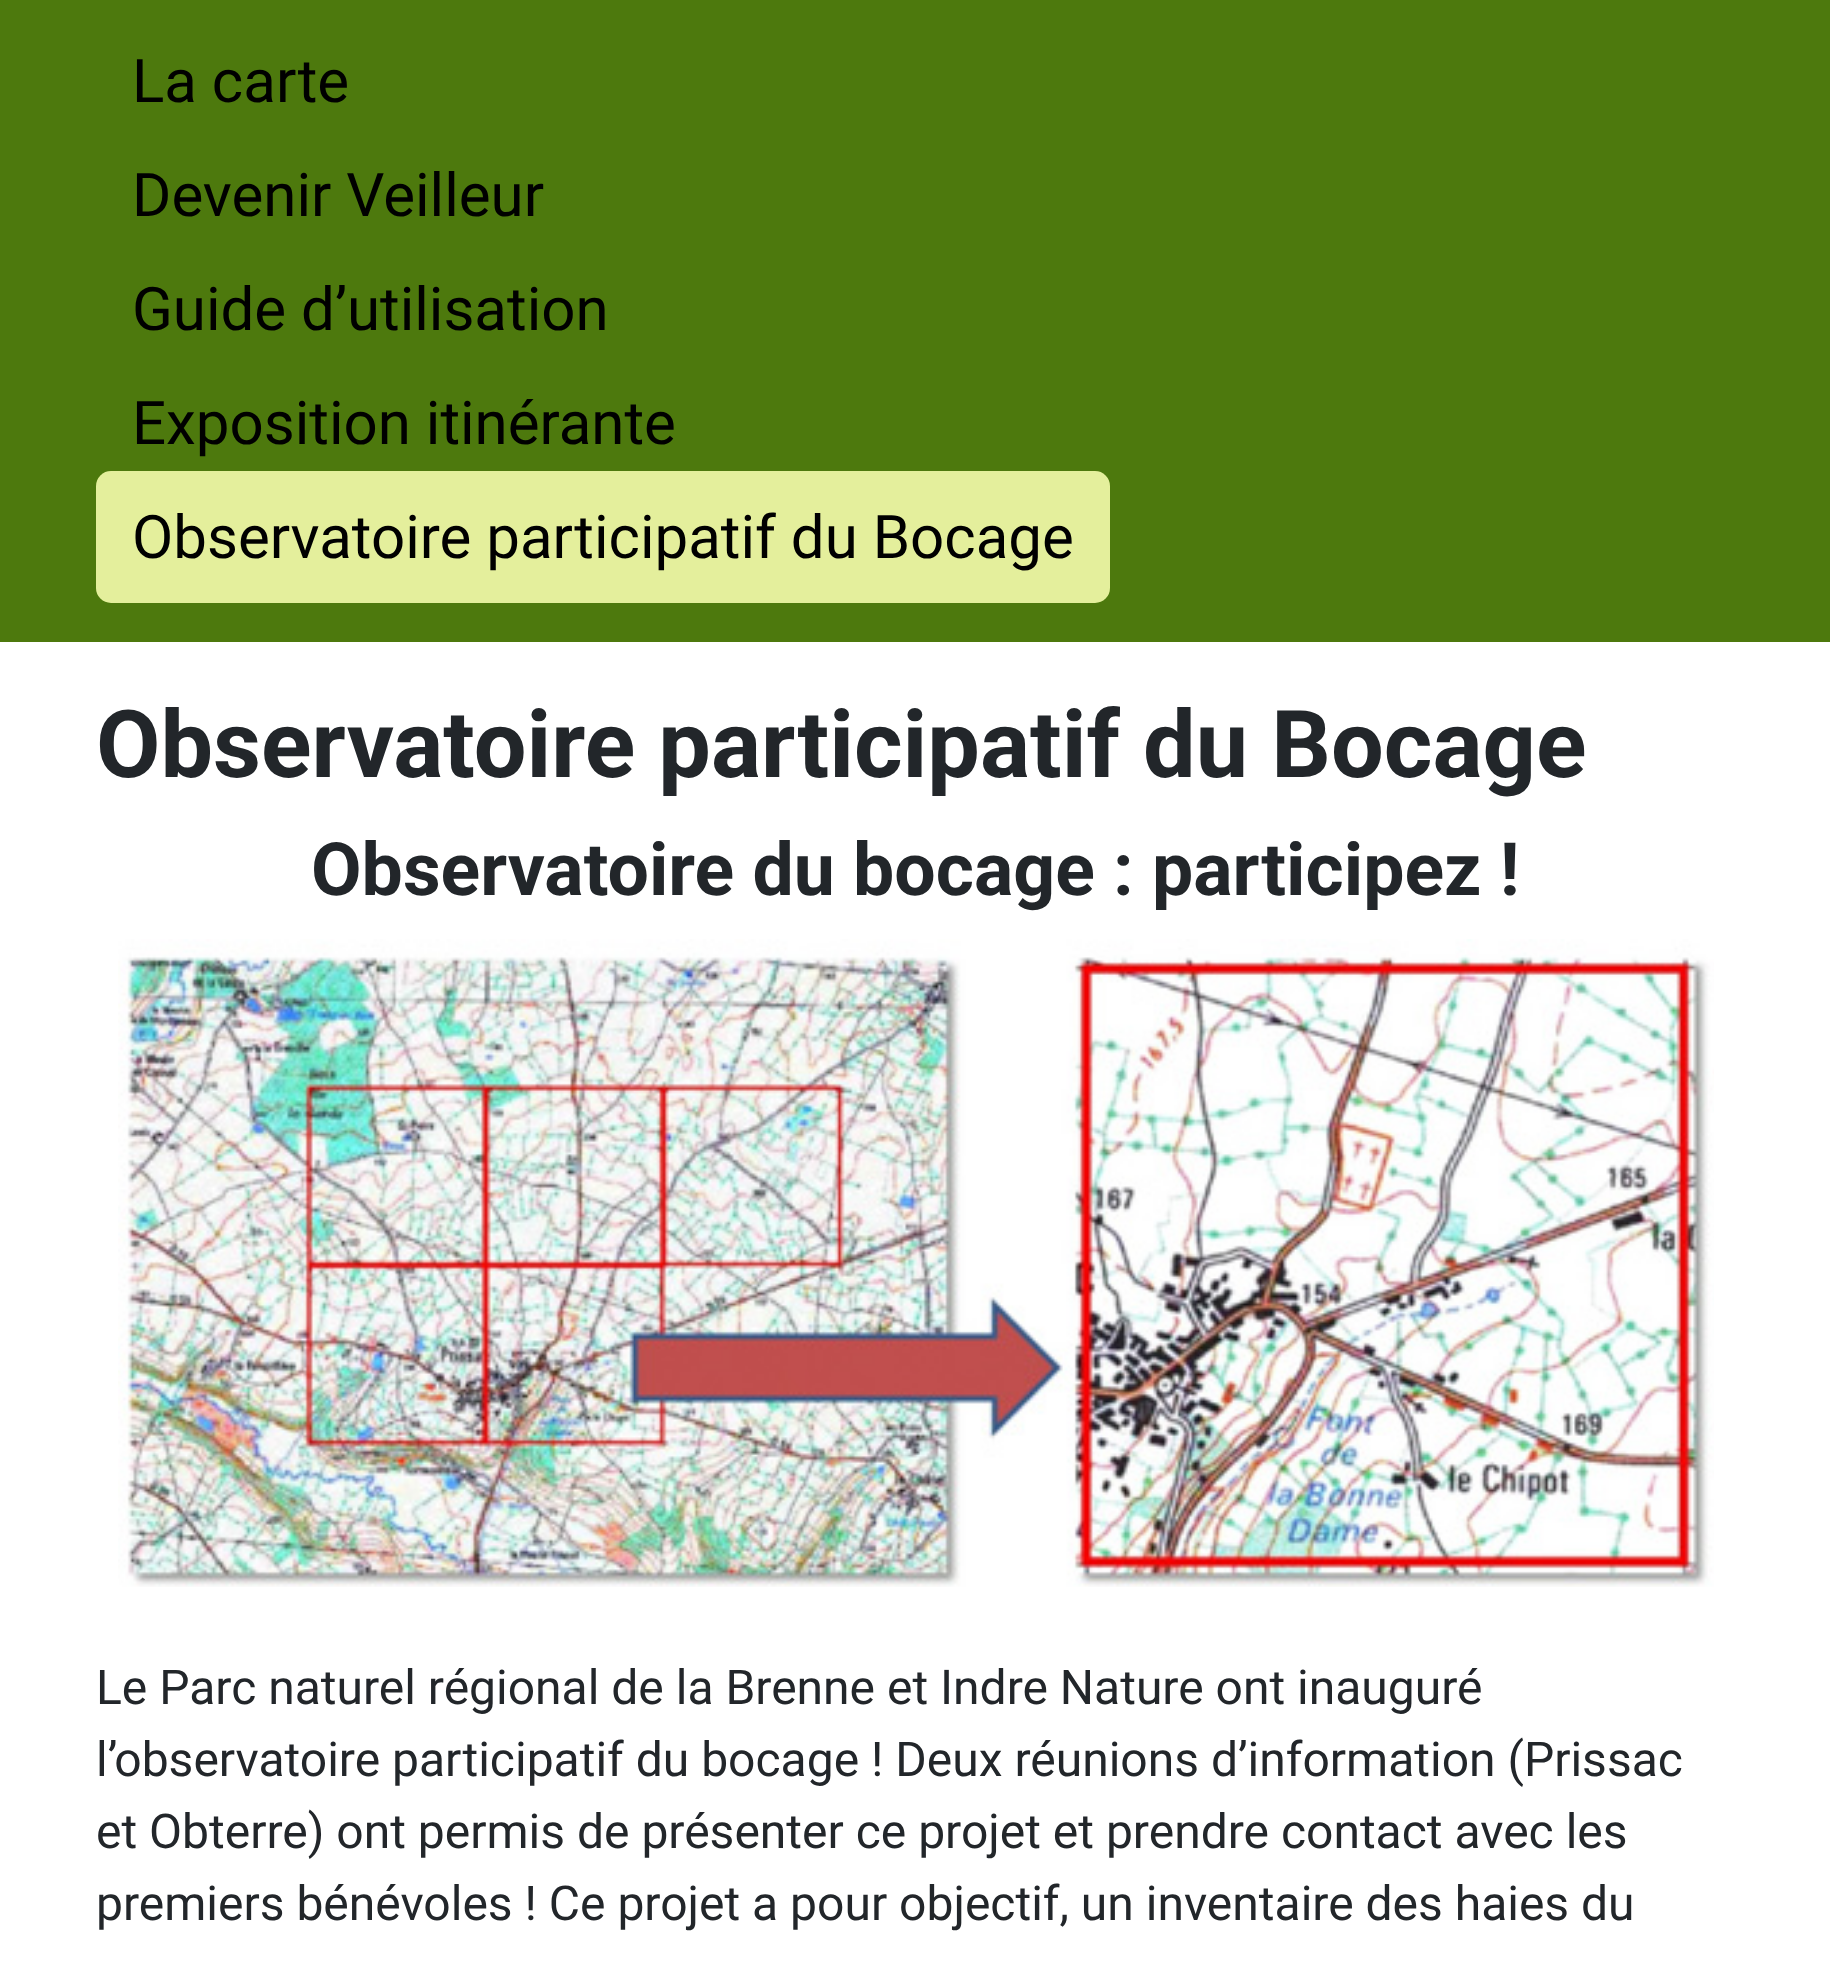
<?xml version="1.0" encoding="UTF-8"?>
<svg xmlns="http://www.w3.org/2000/svg" width="1830" height="1966">
    <rect width="100%" height="100%" fill="#FFFFFF"/>
    <rect x="0" y="0" width="1830" height="642" fill="#4D790D"/>
    <text font-family="Roboto" font-size="60" fill="#000000">
        <tspan x="132" y="102">La carte</tspan>
        <tspan x="132" y="216">Devenir Veilleur</tspan>
        <tspan x="132" y="330">Guide d’utilisation</tspan>
        <tspan x="132" y="444">Exposition itinérante</tspan>
    </text>
    <rect x="96" y="471" width="1014" height="132" rx="15" fill="#E4EF9C"/>
    <text x="132" y="558" font-family="Roboto" font-size="60" fill="#000000">Observatoire participatif du Bocage</text>
    <text x="96" y="777" font-family="Roboto" font-size="93.5" font-weight="700" fill="#22262A">Observatoire participatif du Bocage</text>
    <text x="311" y="895" font-family="Roboto" font-size="73.4" font-weight="700" fill="#22262A">Observatoire du bocage : participez !</text>
    <image x="118" y="939" width="1596" height="648" href="img_01.png"/>
    <text font-family="Roboto" font-size="48" fill="#22262A">
        <tspan x="96" y="1704">Le Parc naturel régional de la Brenne et Indre Nature ont inauguré</tspan>
        <tspan x="96" y="1776">l’observatoire participatif du bocage ! Deux réunions d’information (Prissac</tspan>
        <tspan x="96" y="1848">et Obterre) ont permis de présenter ce projet et prendre contact avec les</tspan>
        <tspan x="96" y="1920">premiers bénévoles ! Ce projet a pour objectif, un inventaire des haies du</tspan>
    </text>
</svg>
